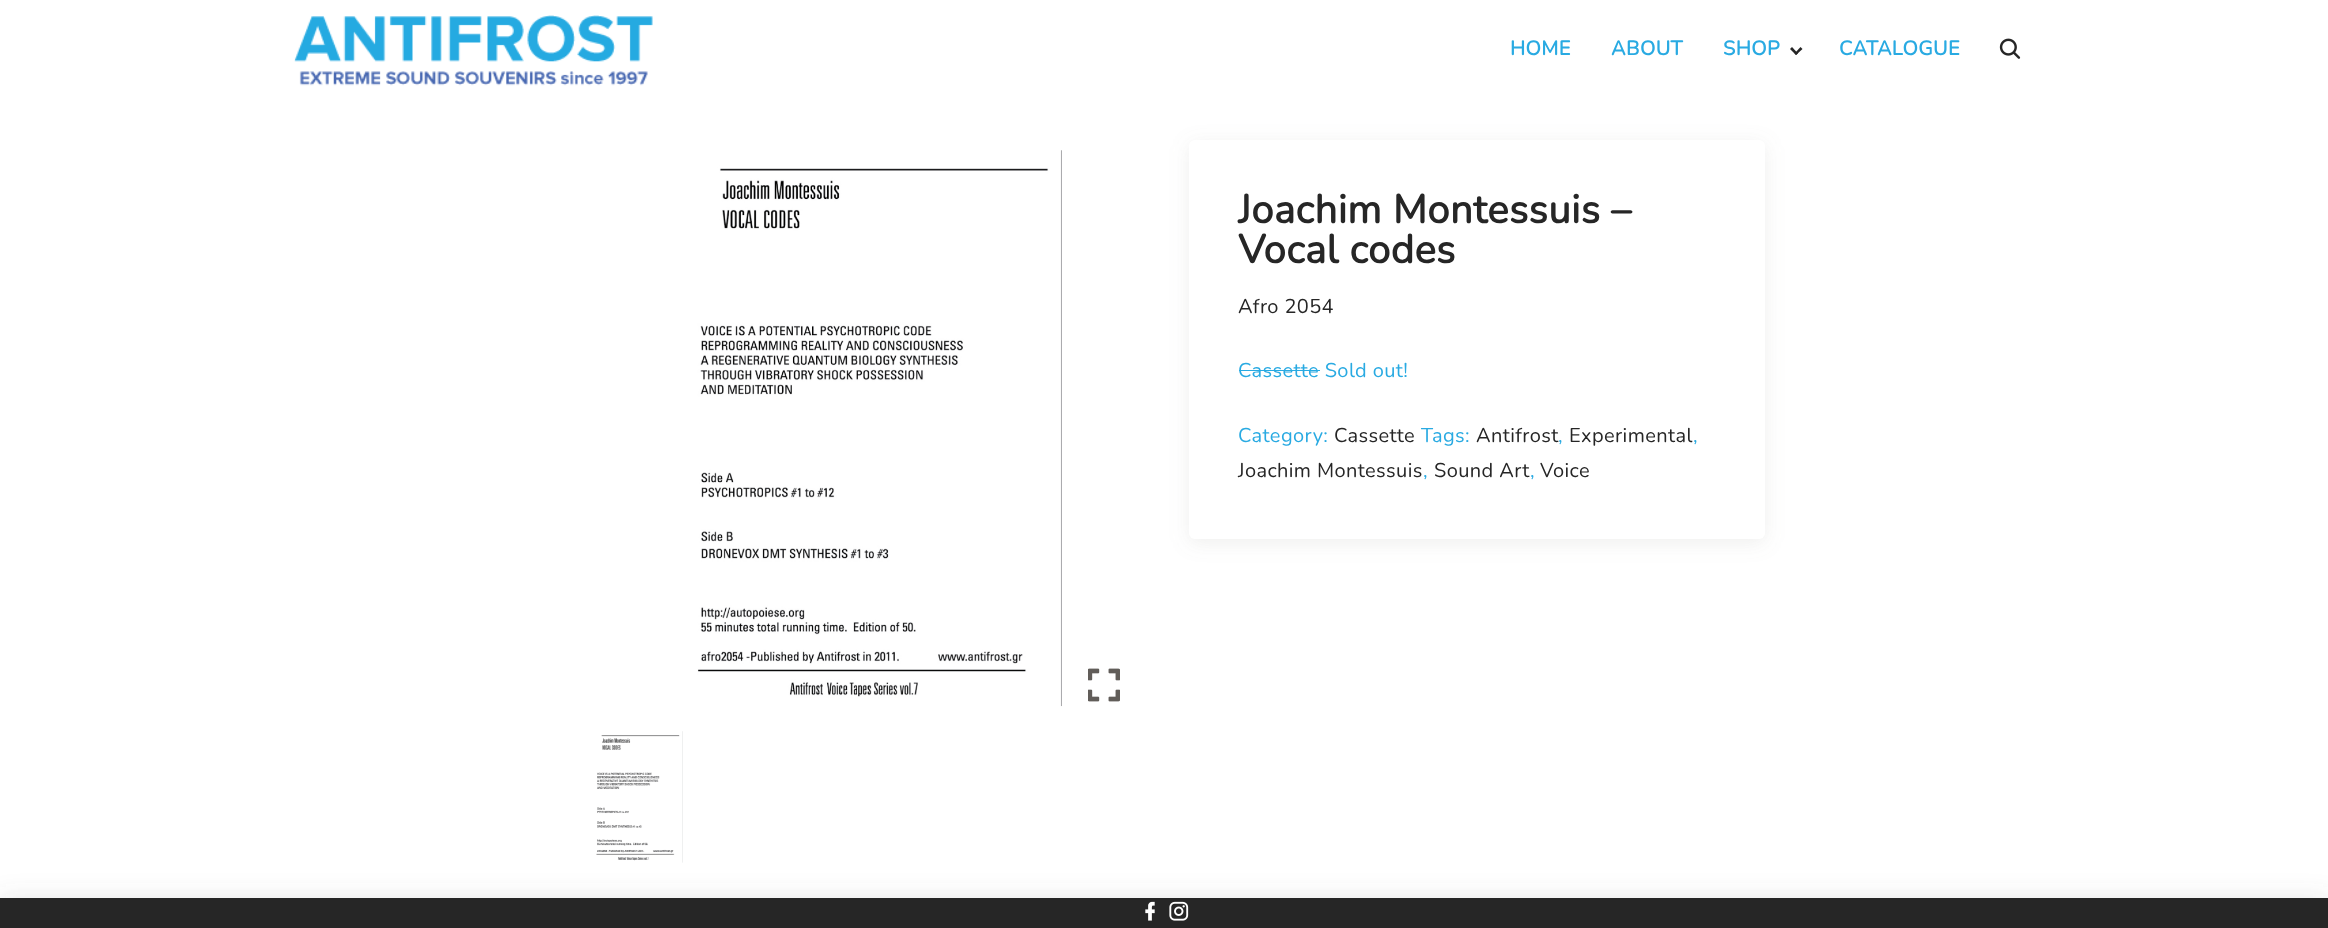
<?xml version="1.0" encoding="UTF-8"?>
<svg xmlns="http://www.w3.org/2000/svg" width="2328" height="928">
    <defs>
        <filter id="blur1" x="-50%" y="-200%" width="200%" height="500%"><feGaussianBlur stdDeviation="9.5"/></filter>
        <filter id="blur2" x="-50%" y="-200%" width="200%" height="500%"><feGaussianBlur stdDeviation="12.5"/></filter>
    </defs>
    <rect width="100%" height="100%" fill="#FFFFFF"/>
    <image x="294" y="15" width="359" height="71" href="img_01.png"/>
    <text x="1510" y="55" font-family="Nunito" font-size="20" font-weight="700" letter-spacing="0.4" fill="#29AAE2">HOME</text>
    <text x="1611" y="55" font-family="Nunito" font-size="20" font-weight="700" letter-spacing="0.4" fill="#29AAE2">ABOUT</text>
    <text x="1723" y="55" font-family="Nunito" font-size="20" font-weight="700" letter-spacing="0.4" fill="#29AAE2">SHOP</text>
    <path d="M 1802.5 49 L 1796 55 L 1794.5 53.5 L 1800.5 47 Z" fill="#262626"/>
    <path d="M 1798 53.5 L 1796 55 L 1790 49 L 1792 47 Z" fill="#262626"/>
    <text x="1839" y="55" font-family="Nunito" font-size="20" font-weight="700" letter-spacing="0.4" fill="#29AAE2">CATALOGUE</text>
    <image x="1999" y="38" width="22" height="21" href="img_02.png"/>
    <image x="697" y="150" width="365" height="557" href="img_03.png"/>
    <image x="1088" y="668" width="32" height="34" href="img_04.png"/>
    <image x="596" y="731" width="87" height="132" href="img_05.png"/>
    <rect x="1189" y="144" width="576" height="399" rx="6" fill="#939290" fill-opacity="0.15" filter="url(#blur1)"/>
    <rect x="1189" y="140" width="576" height="399" rx="6" fill="#FFFFFF"/>
    <text font-family="Nunito" font-size="40" font-weight="700" letter-spacing="0.4" fill="#262626">
        <tspan x="1238" y="223">Joachim Montessuis –</tspan>
        <tspan x="1238" y="263">Vocal codes</tspan>
    </text>
    <text x="1238" y="313" font-family="Nunito" font-size="20" font-weight="200" letter-spacing="0.4" fill="#262626">Afro 2054</text>
    <text x="1238" y="377" font-family="Nunito" font-size="20" font-weight="200" letter-spacing="0.4" fill="#29AAE2">Cassette Sold out!</text>
    <rect x="1239" y="370" width="81" height="1" fill="#29AAE2"/>
    <text x="1238" y="442" font-family="Nunito" font-size="20" font-weight="200" letter-spacing="0.4" fill="#29AAE2">Category:</text>
    <text x="1334" y="442" font-family="Nunito" font-size="20" font-weight="200" letter-spacing="0.4" fill="#262626">Cassette</text>
    <text x="1421" y="442" font-family="Nunito" font-size="20" font-weight="200" letter-spacing="0.4" fill="#29AAE2">Tags:</text>
    <text x="1476" y="442" font-family="Nunito" font-size="20" font-weight="200" letter-spacing="0.4" fill="#262626">Antifrost</text>
    <text x="1558" y="442" font-family="Nunito" font-size="20" font-weight="200" letter-spacing="0.4" fill="#29AAE2">,</text>
    <text x="1569" y="442" font-family="Nunito" font-size="20" font-weight="200" letter-spacing="0.4" fill="#262626">Experimental</text>
    <text x="1693" y="442" font-family="Nunito" font-size="20" font-weight="200" letter-spacing="0.4" fill="#29AAE2">,</text>
    <text x="1238" y="477" font-family="Nunito" font-size="20" font-weight="200" letter-spacing="0.4" fill="#262626">Joachim Montessuis</text>
    <text x="1423" y="477" font-family="Nunito" font-size="20" font-weight="200" letter-spacing="0.4" fill="#29AAE2">,</text>
    <text x="1434" y="477" font-family="Nunito" font-size="20" font-weight="200" letter-spacing="0.4" fill="#262626">Sound Art</text>
    <text x="1530" y="477" font-family="Nunito" font-size="20" font-weight="200" letter-spacing="0.4" fill="#29AAE2">,</text>
    <text x="1540" y="477" font-family="Nunito" font-size="20" font-weight="200" letter-spacing="0.4" fill="#262626">Voice</text>
    <rect x="0" y="898" width="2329" height="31" fill="#646464" fill-opacity="0.15" filter="url(#blur2)"/>
    <rect x="0" y="898" width="2328" height="30" fill="#262626"/>
    <image x="1145" y="901" width="10" height="20" href="img_06.png"/>
    <image x="1169" y="901" width="20" height="20" href="img_07.png"/>
</svg>
